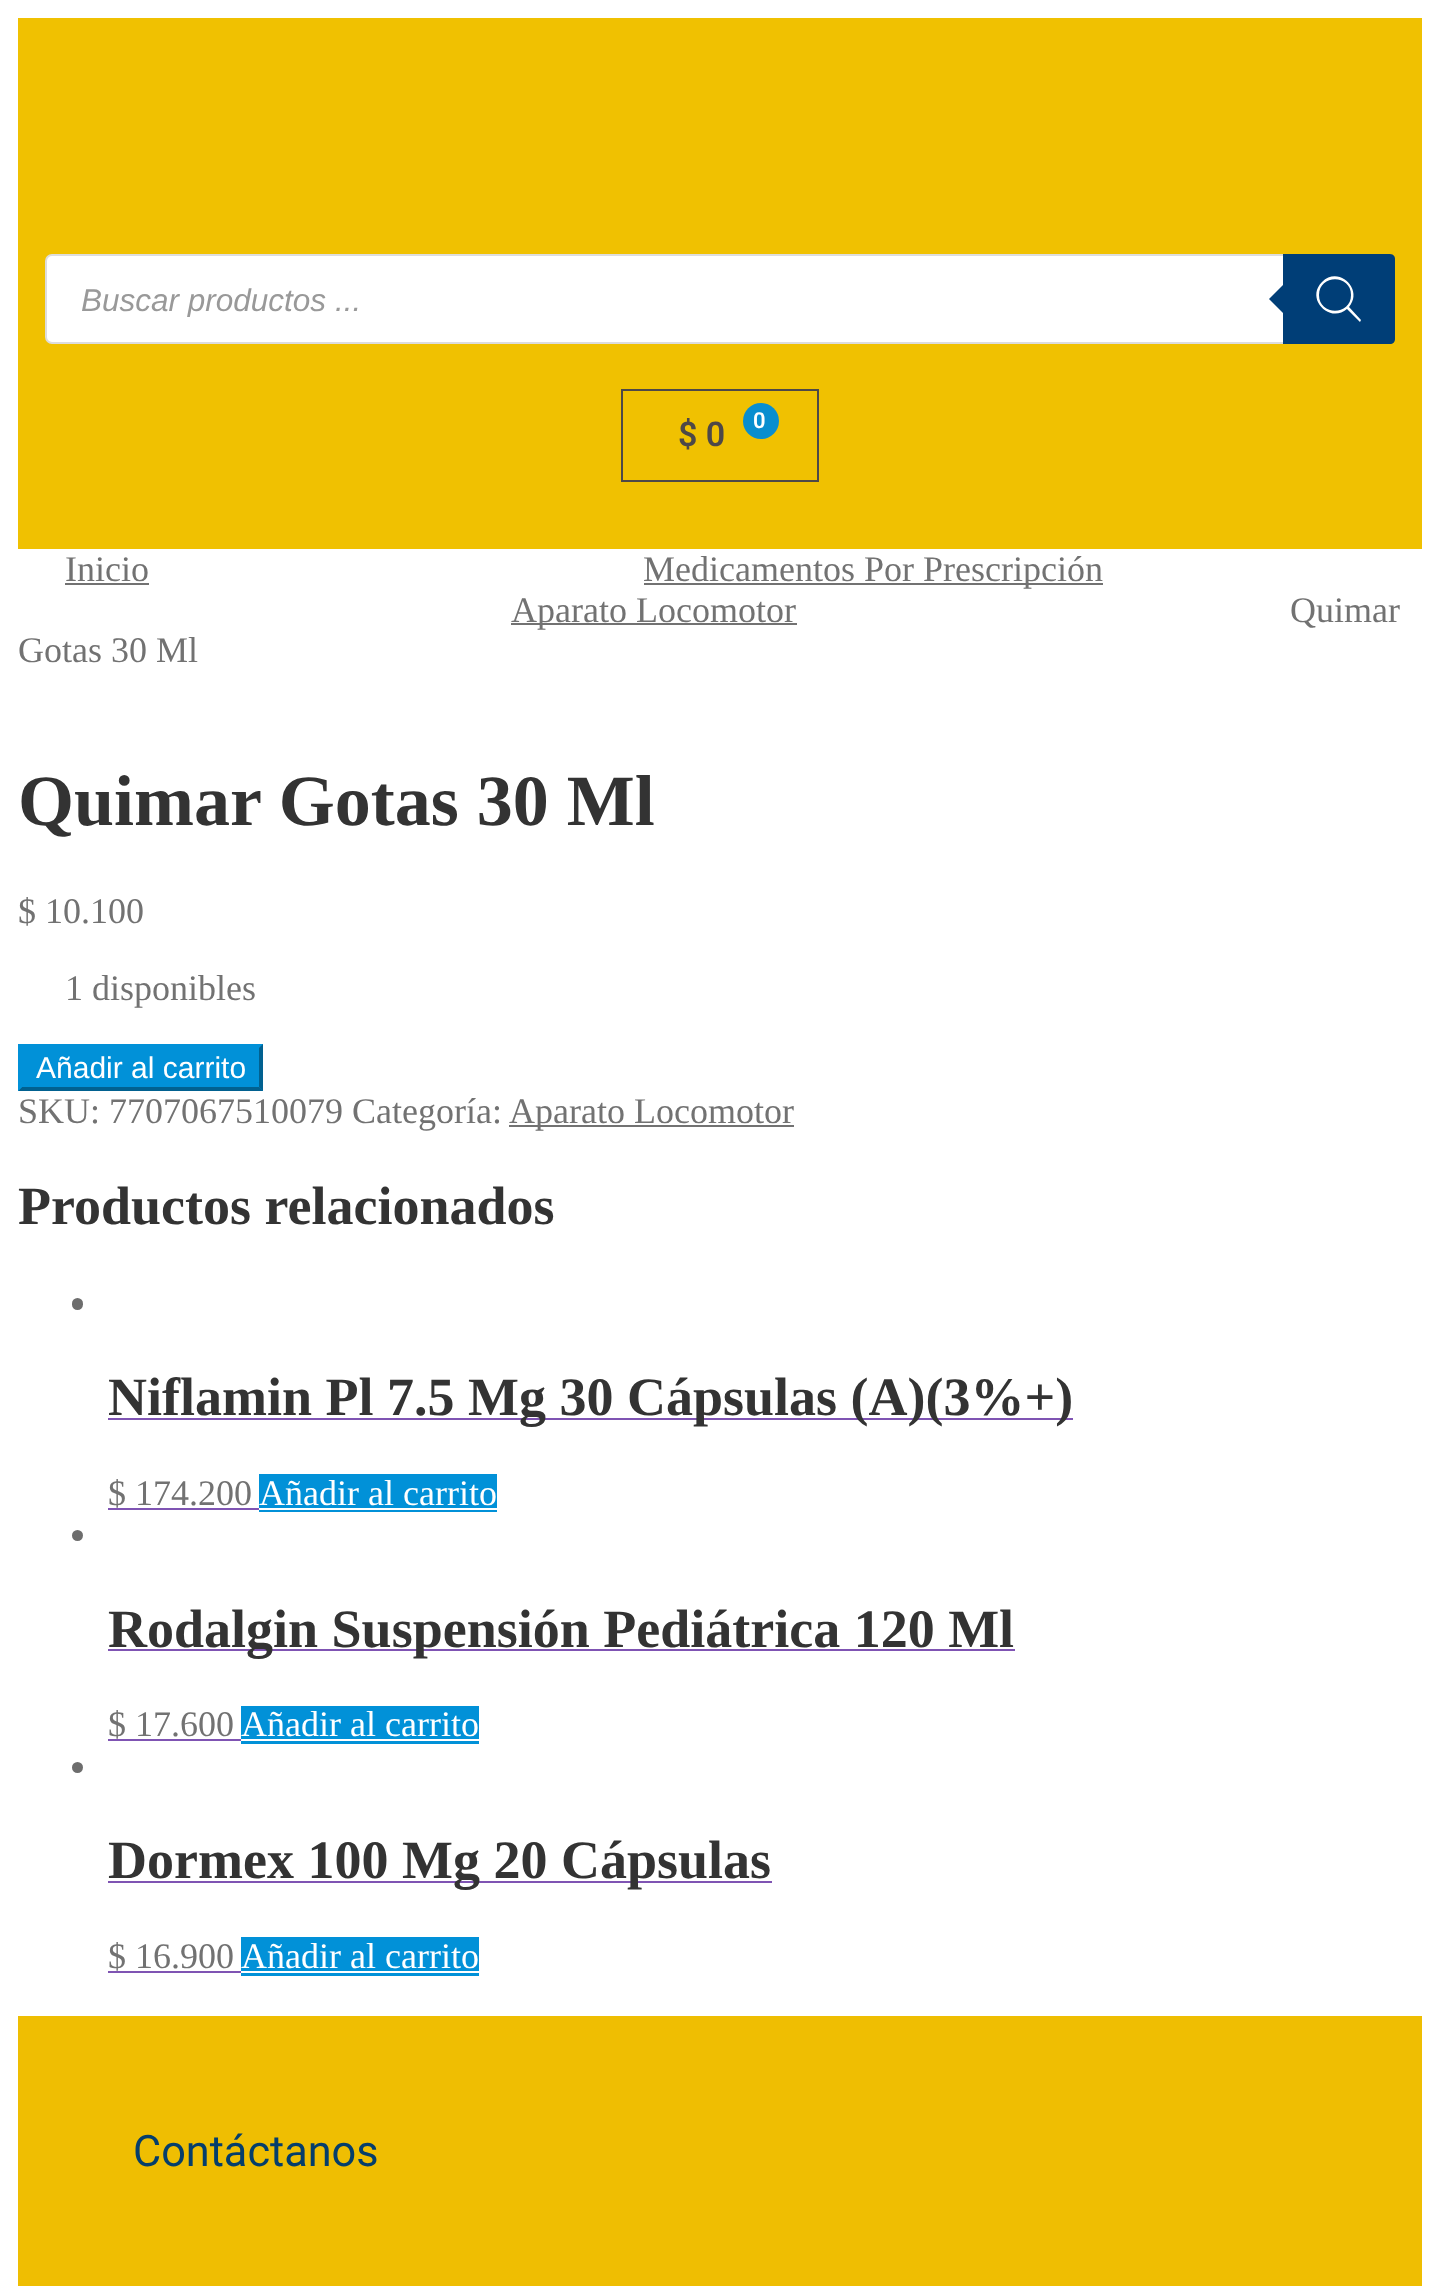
<?xml version="1.0" encoding="UTF-8"?>
<svg xmlns="http://www.w3.org/2000/svg" width="1440" height="2286">
    <defs>
        <clipPath id="clip1"><rect x="81" y="281" width="1278" height="36"/></clipPath>
    </defs>
    <rect width="100%" height="100%" fill="#FFFFFF"/>
    <rect x="18" y="18" width="1404" height="531" fill="#F0C101"/>
    <rect x="46" y="255" width="1348" height="88" rx="6" fill="#FFFFFF" stroke="#DDDDDD" stroke-width="2"/>
    <g clip-path="url(#clip1)">
        <text x="81" y="311" font-family="Liberation Sans" font-size="31.5" font-style="italic" fill="#999999">Buscar productos ...</text>
    </g>
    <path d="M 1283 254 H 1390 C 1393 254 1395 256 1395 259 V 339 C 1395 342 1393 344 1390 344 H 1283 Z" fill="#003E77"/>
    <path d="M 1287 281 V 317 L 1269 299 Z" fill="#003E77"/>
    <path d="M 1361 320 L 1349 307 C 1364 290 1339 265 1322 282 C 1305 299 1330 324 1347 309 L 1360 322 Z M 1319 295 C 1319 274 1351 274 1351 295 C 1351 316 1319 316 1319 295 Z" fill="#FFFFFF"/>
    <rect x="622" y="390" width="196" height="91" fill="none" stroke="#4D4848" stroke-width="2"/>
    <text x="678" y="446" font-family="Roboto" font-size="34" font-weight="600" fill="#4D4848">$ 0</text>
    <circle cx="761" cy="421" r="18" fill="#098ECF"/>
    <text x="753" y="428" font-family="Roboto" font-size="22" font-weight="600" fill="#FFFFFF">0</text>
    <text x="65" y="581" font-family="Liberation Serif" font-size="36" fill="#727272">Inicio</text>
    <rect x="65" y="583" width="84" height="2" fill="#727272"/>
    <rect x="644" y="583" width="459" height="2" fill="#727272"/>
    <text x="643" y="581" font-family="Liberation Serif" font-size="36" fill="#727272">Medicamentos Por Prescripción</text>
    <rect x="511" y="623" width="286" height="2" fill="#727272"/>
    <text x="511" y="622" font-family="Liberation Serif" font-size="36" fill="#727272">Aparato Locomotor</text>
    <text x="1290" y="622" font-family="Liberation Serif" font-size="36" fill="#727272">Quimar</text>
    <text x="18" y="662" font-family="Liberation Serif" font-size="36" fill="#727272">Gotas 30 Ml</text>
    <text x="18" y="825" font-family="Liberation Serif" font-size="72" font-weight="700" fill="#333333">Quimar Gotas 30 Ml</text>
    <text x="18" y="923" font-family="Liberation Serif" font-size="36" fill="#727272">$ 10.100</text>
    <text x="65" y="1000" font-family="Liberation Serif" font-size="36" fill="#727272">1 disponibles</text>
    <rect x="18" y="1044" width="245" height="47" fill="#0191D8"/>
    <path d="M 263 1044 V 1091 L 259 1087 V 1048 Z" fill="#016190"/>
    <path d="M 263 1091 H 18 L 22 1087 H 259 Z" fill="#016190"/>
    <path d="M 18 1091 V 1044 L 22 1048 V 1087 Z" fill="#0191D8"/>
    <text x="36" y="1078" font-family="Liberation Sans" font-size="30" fill="#FFFFFF">Añadir al carrito</text>
    <text x="18" y="1123" font-family="Liberation Serif" font-size="36" fill="#727272">SKU: 7707067510079 Categoría:</text>
    <rect x="509" y="1125" width="285" height="2" fill="#727272"/>
    <text x="509" y="1123" font-family="Liberation Serif" font-size="36" fill="#727272">Aparato Locomotor</text>
    <text x="18" y="1224" font-family="Liberation Serif" font-size="54" font-weight="700" fill="#333333">Productos relacionados</text>
    <rect x="72" y="1298" width="11" height="12" rx="5.5" fill="#6D6D6D"/>
    <rect x="108" y="1418" width="965" height="2" fill="#7F54B3"/>
    <text x="108" y="1415" font-family="Liberation Serif" font-size="54" font-weight="700" fill="#333333">Niflamin Pl 7.5 Mg 30 Cápsulas (A)(3%+)</text>
    <text x="108" y="1505" font-family="Liberation Serif" font-size="36" fill="#727272">$ 174.200</text>
    <rect x="108" y="1508" width="151" height="2" fill="#7F54B3"/>
    <rect x="259" y="1474" width="238" height="38" fill="#0191D8"/>
    <text x="259" y="1505" font-family="Liberation Serif" font-size="36" fill="#FFFFFF">Añadir al carrito</text>
    <rect x="259" y="1508" width="238" height="2" fill="#FFFFFF"/>
    <circle cx="77.5" cy="1535.5" r="5.5" fill="#6D6D6D"/>
    <rect x="108" y="1649" width="907" height="2" fill="#7F54B3"/>
    <text x="108" y="1647" font-family="Liberation Serif" font-size="54" font-weight="700" fill="#333333">Rodalgin Suspensión Pediátrica 120 Ml</text>
    <text x="108" y="1736" font-family="Liberation Serif" font-size="36" fill="#727272">$ 17.600</text>
    <rect x="108" y="1739" width="133" height="2" fill="#7F54B3"/>
    <rect x="241" y="1706" width="238" height="38" fill="#0191D8"/>
    <text x="241" y="1736" font-family="Liberation Serif" font-size="36" fill="#FFFFFF">Añadir al carrito</text>
    <rect x="241" y="1739" width="238" height="2" fill="#FFFFFF"/>
    <circle cx="77.5" cy="1767.5" r="5.5" fill="#6D6D6D"/>
    <rect x="108" y="1881" width="664" height="2" fill="#7F54B3"/>
    <text x="108" y="1878" font-family="Liberation Serif" font-size="54" font-weight="700" fill="#333333">Dormex 100 Mg 20 Cápsulas</text>
    <text x="108" y="1968" font-family="Liberation Serif" font-size="36" fill="#727272">$ 16.900</text>
    <rect x="108" y="1971" width="133" height="2" fill="#7F54B3"/>
    <rect x="241" y="1937" width="238" height="39" fill="#0191D8"/>
    <text x="241" y="1968" font-family="Liberation Serif" font-size="36" fill="#FFFFFF">Añadir al carrito</text>
    <rect x="241" y="1971" width="238" height="2" fill="#FFFFFF"/>
    <rect x="18" y="2016" width="1404" height="270" fill="#EFBE02"/>
    <text x="133" y="2166" font-family="Roboto" font-size="43.25" fill="#053E6B">Contáctanos</text>
</svg>
